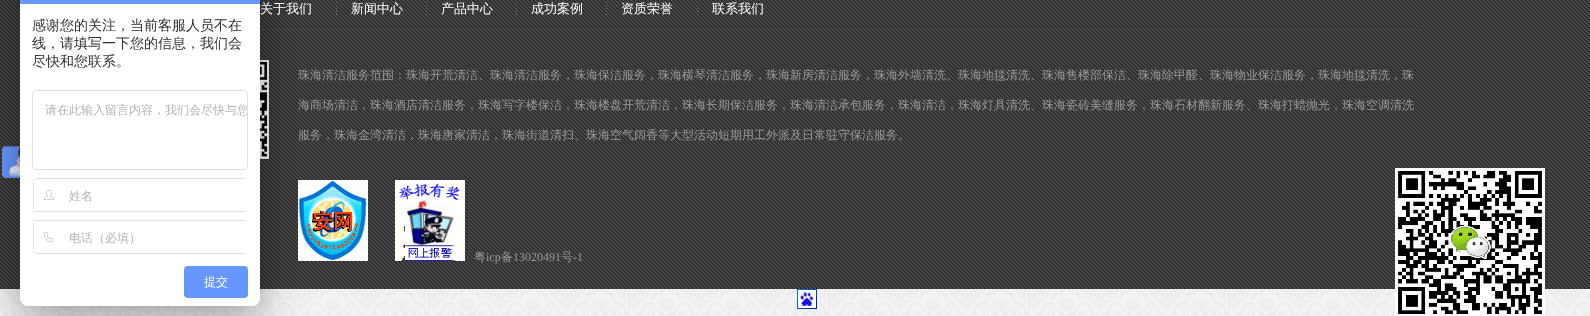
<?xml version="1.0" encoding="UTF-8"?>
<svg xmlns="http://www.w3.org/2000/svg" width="1590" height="316">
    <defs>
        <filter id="blur1" x="-50%" y="-200%" width="200%" height="500%"><feGaussianBlur stdDeviation="20"/></filter>
        <clipPath id="clip1"><rect x="33" y="91" width="214" height="78" rx="3"/></clipPath>
    </defs>
    <rect width="100%" height="100%" fill="#FFFFFF"/>
    <image x="0" y="289" width="1590" height="27" href="img_01.png"/>
    <image x="0" y="0" width="1590" height="289" href="img_05.png"/>
    <image x="2" y="146" width="18" height="32" href="img_02.png"/>
    <image x="260" y="60" width="9" height="99" href="img_09.png"/>
    <rect x="260" y="29" width="1160" height="1" fill="#484848"/>
    <image x="298" y="180" width="70" height="81" href="img_10.png"/>
    <rect x="20" y="-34" width="240" height="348" rx="8" fill="#000000" fill-opacity="0.4" filter="url(#blur1)"/>
    <rect x="20" y="-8" width="240" height="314" rx="8" fill="#FFFFFF"/>
    <rect x="20" y="0" width="240" height="4" fill="#6696FF"/>
    <text font-family="WenQuanYi Zen Hei" font-size="14" font-weight="500" fill="#303133">
        <tspan x="32" y="30">感谢您的关注，当前客服人员不在</tspan>
        <tspan x="32" y="48">线，请填写一下您的信息，我们会</tspan>
        <tspan x="32" y="66">尽快和您联系。</tspan>
    </text>
    <rect x="32.5" y="90.5" width="215" height="79" rx="3.5" fill="none" stroke="#DCDFE6"/>
    <g clip-path="url(#clip1)">
        <text x="45" y="114" font-family="WenQuanYi Zen Hei" font-size="12" font-weight="500" fill="#B0B4BB">请在此输入留言内容，我们会尽快与您</text>
    </g>
    <rect x="33.5" y="178.5" width="214" height="33" rx="3.5" fill="none" stroke="#DCDFE6"/>
    <image x="43" y="189" width="12" height="11" href="img_03.png"/>
    <rect x="244" y="179" width="4" height="32" fill="#FFFFFF"/>
    <text x="69" y="200" font-family="WenQuanYi Zen Hei" font-size="12" font-weight="500" fill="#B0B4BB">姓名</text>
    <rect x="33.5" y="220.5" width="214" height="33" rx="3.5" fill="none" stroke="#DCDFE6"/>
    <image x="43" y="231" width="11" height="12" href="img_04.png"/>
    <rect x="244" y="221" width="4" height="32" fill="#FFFFFF"/>
    <text x="69" y="242" font-family="WenQuanYi Zen Hei" font-size="12" font-weight="500" fill="#B0B4BB">电话（必填）</text>
    <rect x="184" y="266" width="64" height="32" rx="4" fill="#6696FF"/>
    <text x="204" y="286" font-family="WenQuanYi Zen Hei" font-size="12" font-weight="500" fill="#FFFFFF">提交</text>
    <text x="260" y="13" font-family="WenQuanYi Zen Hei" font-size="13" font-weight="500" fill="#FFFFFF">关于我们</text>
    <image x="336" y="2" width="1" height="13" href="img_06.png"/>
    <text x="351" y="13" font-family="WenQuanYi Zen Hei" font-size="13" font-weight="500" fill="#FFFFFF">新闻中心</text>
    <image x="426" y="2" width="1" height="13" href="img_07.png"/>
    <text x="441" y="13" font-family="WenQuanYi Zen Hei" font-size="13" font-weight="500" fill="#FFFFFF">产品中心</text>
    <image x="516" y="2" width="1" height="13" href="img_06.png"/>
    <text x="531" y="13" font-family="WenQuanYi Zen Hei" font-size="13" font-weight="500" fill="#FFFFFF">成功案例</text>
    <image x="606" y="2" width="1" height="13" href="img_07.png"/>
    <text x="621" y="13" font-family="WenQuanYi Zen Hei" font-size="13" font-weight="500" fill="#FFFFFF">资质荣誉</text>
    <image x="697" y="2" width="1" height="13" href="img_08.png"/>
    <text x="712" y="13" font-family="WenQuanYi Zen Hei" font-size="13" font-weight="500" fill="#FFFFFF">联系我们</text>
    <text x="298" y="79" font-family="WenQuanYi Zen Hei" font-size="12" font-weight="500" fill="#999999">珠海清洁服务范围：珠海开荒清洁、珠海清洁服务，珠海保洁服务，珠海横琴清洁服务，珠海新房清洁服务，珠海外墙清洗、珠海地毯清洗、珠海售楼部保洁、珠海除甲醛、珠海物业保洁服务，珠海地毯清洗，珠</text>
    <text x="298" y="109" font-family="WenQuanYi Zen Hei" font-size="12" font-weight="500" fill="#999999">海商场清洁，珠海酒店清洁服务，珠海写字楼保洁，珠海楼盘开荒清洁，珠海长期保洁服务，珠海清洁承包服务，珠海清洁，珠海灯具清洗、珠海瓷砖美缝服务，珠海石材翻新服务、珠海打蜡抛光，珠海空调清洗</text>
    <text x="298" y="139" font-family="WenQuanYi Zen Hei" font-size="12" font-weight="500" fill="#999999">服务，珠海金湾清洁，珠海唐家清洁，珠海街道清扫、珠海空气阔香等大型活动短期用工外派及日常驻守保洁服务。</text>
    <image x="395" y="180" width="70" height="81" href="img_11.png"/>
    <text x="474" y="261" font-family="WenQuanYi Zen Hei" font-size="12" font-weight="500" fill="#999999">粤</text>
    <text x="486" y="261" font-family="Liberation Serif" font-size="12" fill="#999999">icp</text>
    <text x="501" y="261" font-family="WenQuanYi Zen Hei" font-size="12" font-weight="500" fill="#999999">备</text>
    <text x="513" y="261" font-family="Liberation Serif" font-size="12" fill="#999999">13020491</text>
    <text x="561" y="261" font-family="WenQuanYi Zen Hei" font-size="12" font-weight="500" fill="#999999">号</text>
    <text x="573" y="261" font-family="Liberation Serif" font-size="12" fill="#999999">-1</text>
    <image x="1395" y="168" width="150" height="148" href="img_12.png"/>
    <image x="797" y="289" width="20" height="20" href="img_13.png"/>
</svg>
